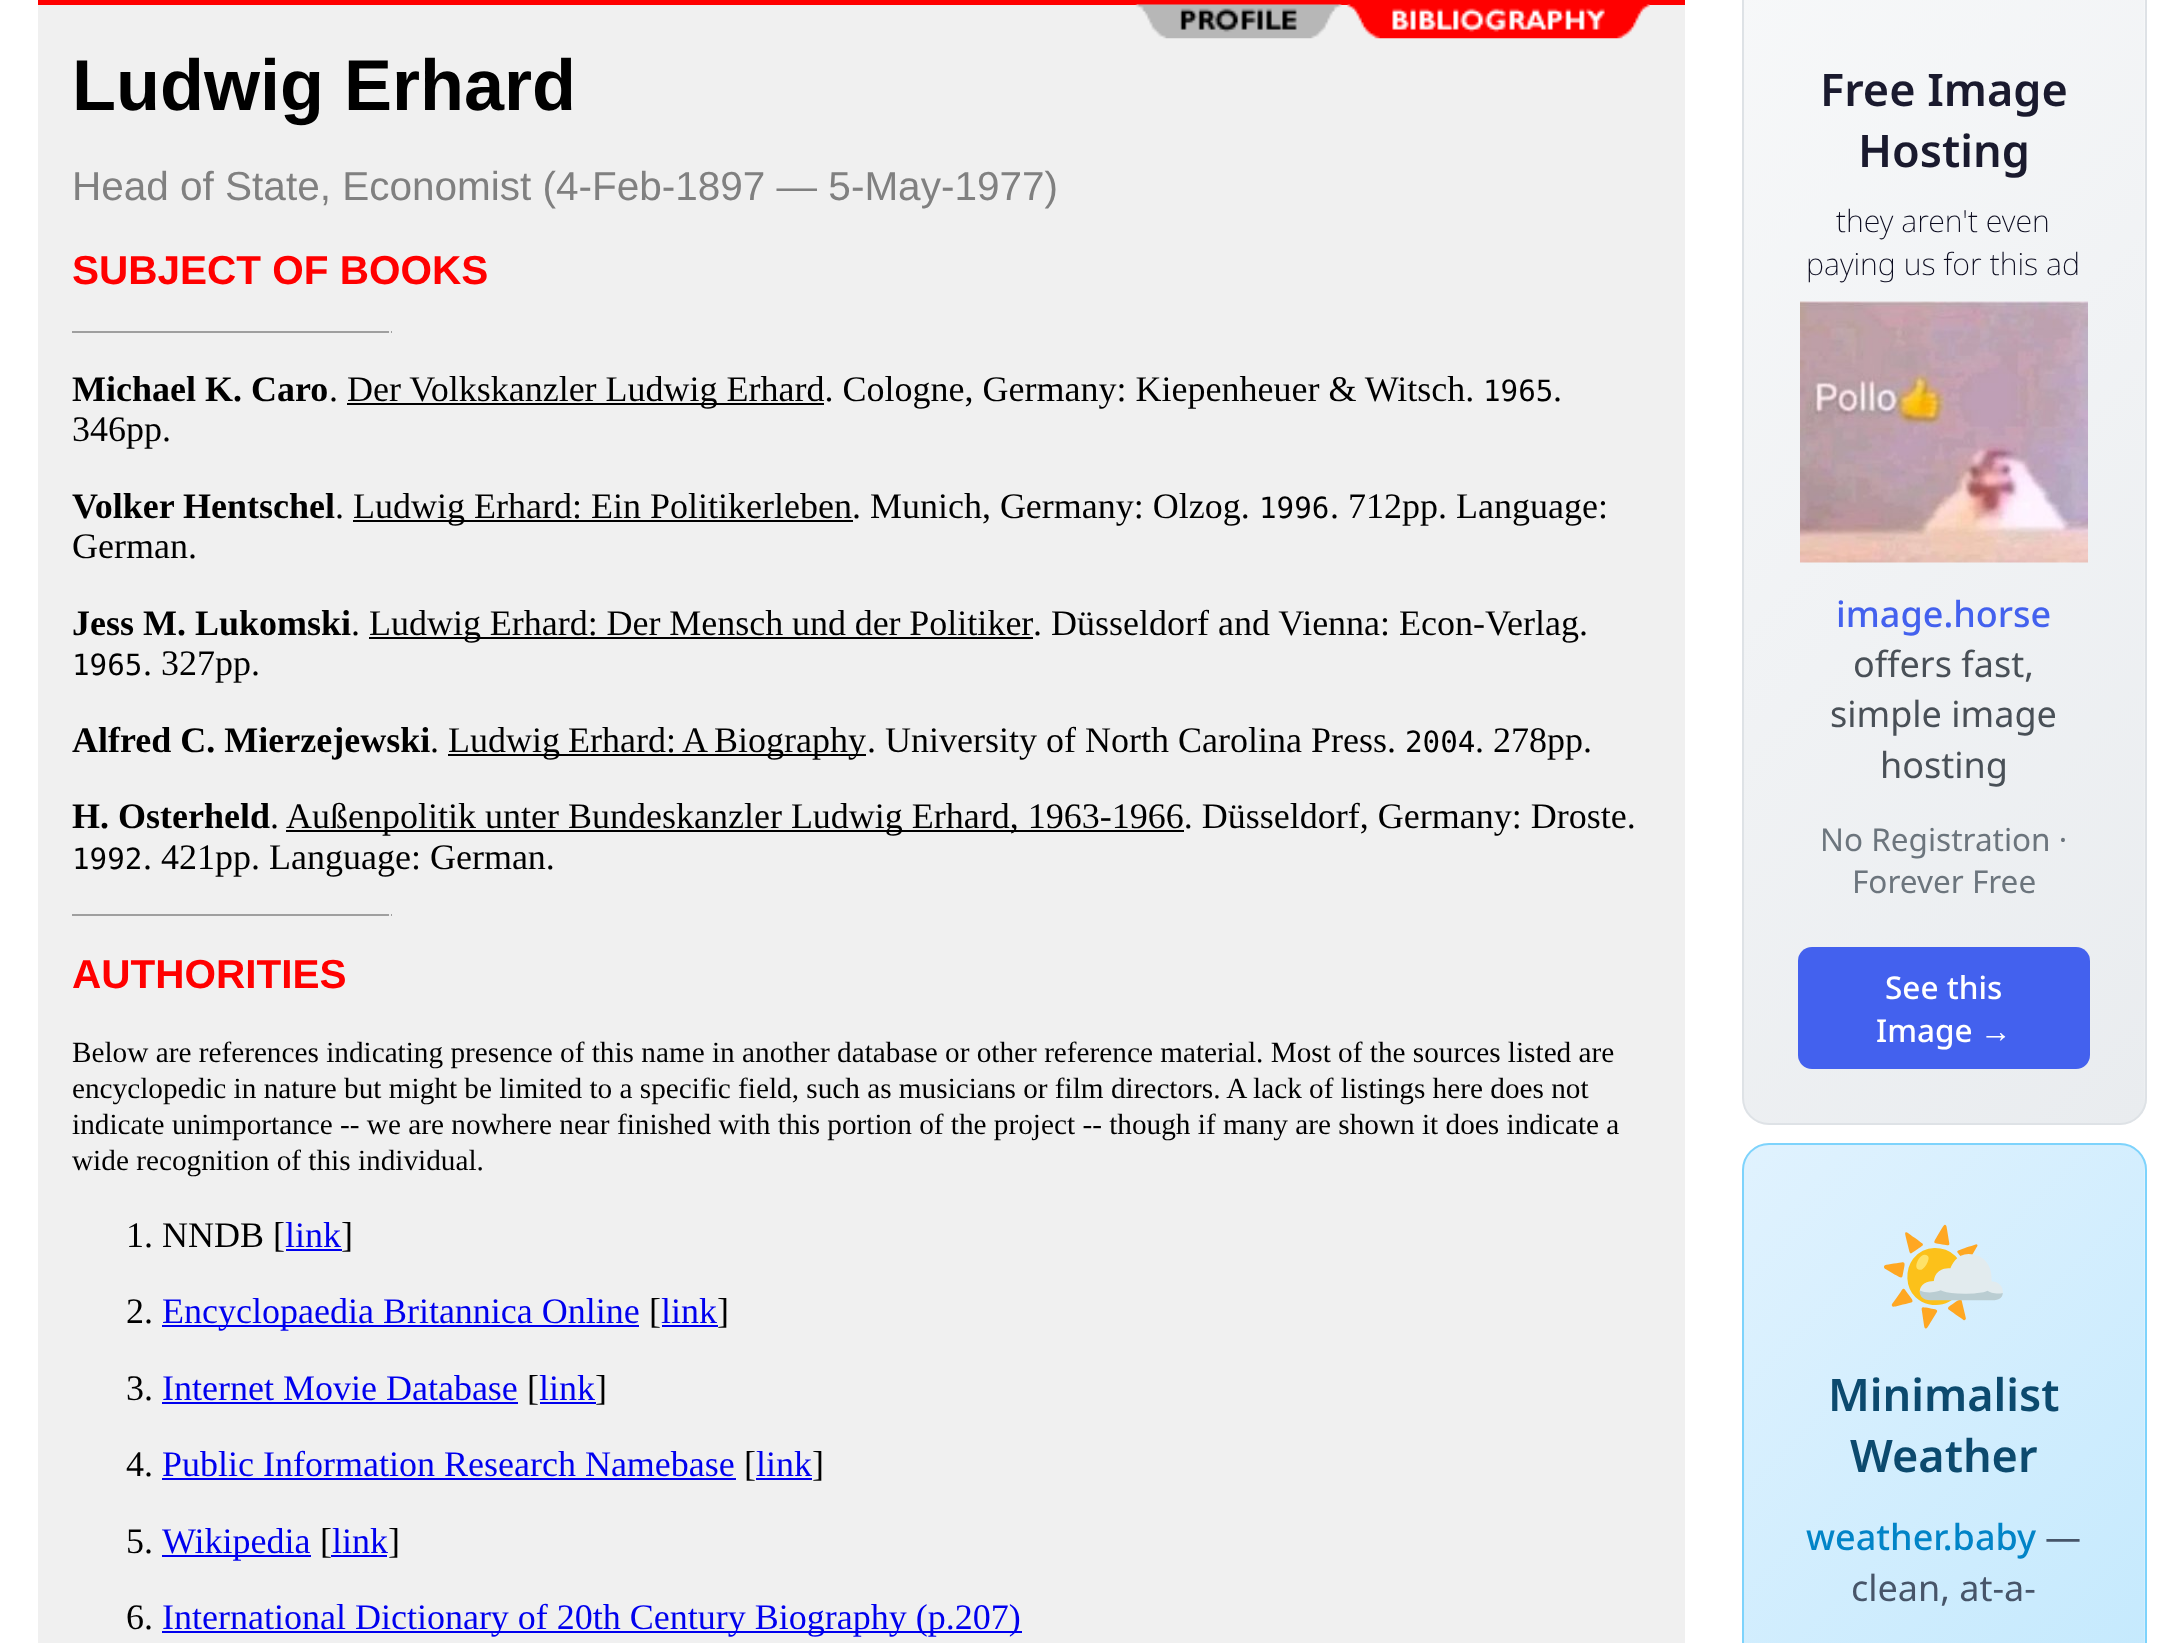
<?xml version="1.0" encoding="UTF-8"?>
<svg xmlns="http://www.w3.org/2000/svg" width="2183" height="1643">
    <defs>
        <clipPath id="clip1"><rect x="1742" y="-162" width="405" height="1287" rx="27"/></clipPath>
        <linearGradient id="g1" gradientUnits="userSpaceOnUse" x1="1523" y1="61" x2="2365" y2="902"><stop offset="0" stop-color="#F8F9FA"/><stop offset="1" stop-color="#E9ECEF"/></linearGradient>
        <linearGradient id="g2" gradientUnits="userSpaceOnUse" x1="1924" y1="61" x2="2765" y2="902"><stop offset="0" stop-color="#F8F9FA"/><stop offset="1" stop-color="#E9ECEF"/></linearGradient>
        <clipPath id="clip2"><rect x="1742" y="1143" width="405" height="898" rx="27"/></clipPath>
        <linearGradient id="g3" gradientUnits="userSpaceOnUse" x1="1621" y1="1268" x2="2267" y2="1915"><stop offset="0" stop-color="#E0F2FE"/><stop offset="1" stop-color="#BAE6FD"/></linearGradient>
        <linearGradient id="g4" gradientUnits="userSpaceOnUse" x1="2021" y1="1268" x2="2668" y2="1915"><stop offset="0" stop-color="#E0F2FE"/><stop offset="1" stop-color="#BAE6FD"/></linearGradient>
    </defs>
    <rect width="100%" height="100%" fill="#FFFFFF"/>
    <rect x="38" y="0" width="1647" height="5" fill="#FF0000"/>
    <rect x="38" y="5" width="1647" height="1638" fill="#F0F0F0"/>
    <image x="1135" y="4" width="515" height="35" href="img_01.png"/>
    <text x="72" y="110" font-family="Liberation Sans" font-size="72" font-weight="700" fill="#000000">Ludwig Erhard</text>
    <text x="72" y="200" font-family="Liberation Sans" font-size="40.5" fill="#808080">Head of State, Economist (4-Feb-1897 — 5-May-1977)</text>
    <text x="72" y="284" font-family="Liberation Sans" font-size="40.5" font-weight="700" fill="#FF0000">SUBJECT OF BOOKS</text>
    <rect x="72" y="331" width="320" height="2" fill="#9F9F9F"/>
    <rect x="389" y="331" width="2" height="2" fill="#EEEEEE"/>
    <text x="72" y="401" font-family="Liberation Serif" font-size="36" font-weight="700" fill="#000000">Michael K. Caro</text>
    <text x="329" y="401" font-family="Liberation Serif" font-size="36" fill="#000000">.</text>
    <rect x="347" y="403" width="477" height="2" fill="#000000"/>
    <text x="347" y="401" font-family="Liberation Serif" font-size="36" fill="#000000">Der Volkskanzler Ludwig Erhard. Cologne, Germany: Kiepenheuer &amp; Witsch.</text>
    <text x="1483" y="401" font-family="DejaVu Sans Mono" font-size="29.25" fill="#000000">1965</text>
    <text x="1553" y="401" font-family="Liberation Serif" font-size="36" fill="#000000">.</text>
    <text x="72" y="441" font-family="Liberation Serif" font-size="36" fill="#000000">346pp.</text>
    <text x="72" y="518" font-family="Liberation Serif" font-size="36" font-weight="700" fill="#000000">Volker Hentschel</text>
    <text x="335" y="518" font-family="Liberation Serif" font-size="36" fill="#000000">.</text>
    <rect x="353" y="520" width="500" height="2" fill="#000000"/>
    <text x="353" y="518" font-family="Liberation Serif" font-size="36" fill="#000000">Ludwig Erhard: Ein Politikerleben. Munich, Germany: Olzog.</text>
    <text x="1259" y="518" font-family="DejaVu Sans Mono" font-size="29.25" fill="#000000">1996</text>
    <text x="1330" y="518" font-family="Liberation Serif" font-size="36" fill="#000000">. 712pp. Language:</text>
    <text x="72" y="558" font-family="Liberation Serif" font-size="36" fill="#000000">German.</text>
    <text x="72" y="635" font-family="Liberation Serif" font-size="36" font-weight="700" fill="#000000">Jess M. Lukomski</text>
    <text x="351" y="635" font-family="Liberation Serif" font-size="36" fill="#000000">.</text>
    <rect x="369" y="637" width="664" height="2" fill="#000000"/>
    <text x="369" y="635" word-spacing="-0.25" font-family="Liberation Serif" font-size="36" fill="#000000">Ludwig Erhard: Der Mensch und der Politiker</text>
    <text x="1033" y="635" font-family="Liberation Serif" font-size="36" fill="#000000">. Düsseldorf and Vienna: Econ-Verlag.</text>
    <text x="72" y="675" font-family="DejaVu Sans Mono" font-size="29.25" fill="#000000">1965</text>
    <text x="143" y="675" font-family="Liberation Serif" font-size="36" fill="#000000">. 327pp.</text>
    <text x="72" y="752" font-family="Liberation Serif" font-size="36" font-weight="700" fill="#000000">Alfred C. Mierzejewski</text>
    <text x="430" y="752" font-family="Liberation Serif" font-size="36" fill="#000000">.</text>
    <rect x="448" y="754" width="418" height="2" fill="#000000"/>
    <text x="448" y="752" word-spacing="-1" font-family="Liberation Serif" font-size="36" fill="#000000">Ludwig Erhard: A Biography</text>
    <text x="867" y="752" font-family="Liberation Serif" font-size="36" fill="#000000">. University of North Carolina Press.</text>
    <text x="1405" y="752" font-family="DejaVu Sans Mono" font-size="29.25" fill="#000000">2004</text>
    <text x="1475" y="752" font-family="Liberation Serif" font-size="36" fill="#000000">. 278pp.</text>
    <text x="72" y="828" font-family="Liberation Serif" font-size="36" font-weight="700" fill="#000000">H. Osterheld</text>
    <text x="270" y="828" font-family="Liberation Serif" font-size="36" fill="#000000">.</text>
    <rect x="286" y="830" width="898" height="2" fill="#000000"/>
    <text x="286" y="828" font-family="Liberation Serif" font-size="36" fill="#000000">Außenpolitik unter Bundeskanzler Ludwig Erhard, 1963-1966. Düsseldorf, Germany: Droste.</text>
    <text x="72" y="869" font-family="DejaVu Sans Mono" font-size="29.25" fill="#000000">1992</text>
    <text x="143" y="869" font-family="Liberation Serif" font-size="36" fill="#000000">. 421pp. Language: German.</text>
    <rect x="72" y="914" width="320" height="2" fill="#9F9F9F"/>
    <rect x="389" y="914" width="2" height="2" fill="#EEEEEE"/>
    <text x="72" y="988" font-family="Liberation Sans" font-size="40.5" font-weight="700" fill="#FF0000">AUTHORITIES</text>
    <text font-family="Liberation Serif" font-size="29.25" fill="#000000">
        <tspan x="72" y="1062">Below are references indicating presence of this name in another database or other reference material. Most of the sources listed are</tspan>
        <tspan x="72" y="1098">encyclopedic in nature but might be limited to a specific field, such as musicians or film directors. A lack of listings here does not</tspan>
        <tspan x="72" y="1134">indicate unimportance -- we are nowhere near finished with this portion of the project -- though if many are shown it does indicate a</tspan>
        <tspan x="72" y="1170">wide recognition of this individual.</tspan>
    </text>
    <text x="126" y="1247" font-family="Liberation Serif" font-size="36" fill="#000000">1. NNDB [</text>
    <text x="285" y="1247" font-family="Liberation Serif" font-size="36" fill="#0000EE">link</text>
    <rect x="286" y="1249" width="56" height="2" fill="#0000EE"/>
    <text x="341" y="1247" font-family="Liberation Serif" font-size="36" fill="#000000">]</text>
    <text x="126" y="1323" font-family="Liberation Serif" font-size="36" fill="#000000">2.</text>
    <rect x="162" y="1325" width="477" height="2" fill="#0000EE"/>
    <text x="162" y="1323" font-family="Liberation Serif" font-size="36" fill="#0000EE">Encyclopaedia Britannica Online</text>
    <text x="649" y="1323" font-family="Liberation Serif" font-size="36" fill="#000000">[</text>
    <text x="661" y="1323" font-family="Liberation Serif" font-size="36" fill="#0000EE">link</text>
    <rect x="662" y="1325" width="56" height="2" fill="#0000EE"/>
    <text x="717" y="1323" font-family="Liberation Serif" font-size="36" fill="#000000">]</text>
    <text x="126" y="1400" font-family="Liberation Serif" font-size="36" fill="#000000">3.</text>
    <text x="162" y="1400" font-family="Liberation Serif" font-size="36" fill="#0000EE">Internet Movie Database</text>
    <rect x="162" y="1402" width="356" height="2" fill="#0000EE"/>
    <text x="527" y="1400" font-family="Liberation Serif" font-size="36" fill="#000000">[</text>
    <text x="539" y="1400" font-family="Liberation Serif" font-size="36" fill="#0000EE">link</text>
    <rect x="540" y="1402" width="56" height="2" fill="#0000EE"/>
    <text x="595" y="1400" font-family="Liberation Serif" font-size="36" fill="#000000">]</text>
    <text x="126" y="1476" font-family="Liberation Serif" font-size="36" fill="#000000">4.</text>
    <text x="162" y="1476" font-family="Liberation Serif" font-size="36" fill="#0000EE">Public Information Research Namebase</text>
    <rect x="162" y="1478" width="574" height="2" fill="#0000EE"/>
    <text x="744" y="1476" font-family="Liberation Serif" font-size="36" fill="#000000">[</text>
    <text x="756" y="1476" font-family="Liberation Serif" font-size="36" fill="#0000EE">link</text>
    <rect x="756" y="1478" width="56" height="2" fill="#0000EE"/>
    <text x="812" y="1476" font-family="Liberation Serif" font-size="36" fill="#000000">]</text>
    <text x="126" y="1553" font-family="Liberation Serif" font-size="36" fill="#000000">5.</text>
    <rect x="162" y="1555" width="149" height="2" fill="#0000EE"/>
    <text x="162" y="1553" font-family="Liberation Serif" font-size="36" fill="#0000EE">Wikipedia</text>
    <text x="320" y="1553" font-family="Liberation Serif" font-size="36" fill="#000000">[</text>
    <text x="332" y="1553" font-family="Liberation Serif" font-size="36" fill="#0000EE">link</text>
    <rect x="331" y="1555" width="56" height="2" fill="#0000EE"/>
    <text x="388" y="1553" font-family="Liberation Serif" font-size="36" fill="#000000">]</text>
    <text x="126" y="1629" font-family="Liberation Serif" font-size="36" fill="#000000">6.</text>
    <rect x="162" y="1631" width="860" height="2" fill="#0000EE"/>
    <text x="162" y="1629" font-family="Liberation Serif" font-size="36" fill="#0000EE">International Dictionary of 20th Century Biography (p.207)</text>
    <g clip-path="url(#clip1)">
        <rect x="1744" y="0" width="400" height="1123" fill="url(#g1)"/>
        <rect x="2144" y="0" width="3" height="1111" fill="url(#g2)"/>
    </g>
    <rect x="1743" y="-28" width="403" height="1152" rx="26" fill="none" stroke="#DEE2E6" stroke-width="2"/>
    <text x="1820" y="106" font-family="Noto Sans" font-size="45" font-weight="600" fill="#1A1A2E">Free Image</text>
    <text x="1858" y="167" font-family="Noto Sans" font-size="45" font-weight="600" fill="#1A1A2E">Hosting</text>
    <text x="1836" y="232" font-family="Noto Sans" font-size="30.5" font-weight="200" fill="#0A0A1E">they aren't even</text>
    <text x="1806" y="275" font-family="Noto Sans" font-size="30.5" font-weight="200" fill="#0A0A1E">paying us for this ad</text>
    <image x="1800" y="301" width="288" height="262" href="img_02.png"/>
    <text x="1836" y="627" font-family="Noto Sans" font-size="36" font-weight="500" fill="#4361EE">image.horse</text>
    <text x="1853" y="677" font-family="Noto Sans" font-size="36" fill="#495057">offers fast,</text>
    <text x="1830" y="727" font-family="Noto Sans" font-size="36" fill="#495057">simple image</text>
    <text x="1880" y="778" font-family="Noto Sans" font-size="36" fill="#495057">hosting</text>
    <text x="1820" y="851" font-family="Noto Sans" font-size="31.5" fill="#6C757D">No Registration ·</text>
    <text x="1852" y="893" font-family="Noto Sans" font-size="31.5" fill="#6C757D">Forever Free</text>
    <rect x="1798" y="947" width="292" height="122" rx="14" fill="#4361EE"/>
    <text x="1885" y="999" font-family="Noto Sans" font-size="31.5" font-weight="500" fill="#FFFFFF">See this</text>
    <text x="1876" y="1042" font-family="Noto Sans" font-size="31.5" font-weight="500" fill="#FFFFFF">Image</text>
    <text x="1980" y="1042" font-family="Liberation Sans" font-size="31.5" fill="#FFFFFF">→</text>
    <g clip-path="url(#clip2)">
        <rect x="1744" y="1145" width="400" height="498" fill="url(#g3)"/>
        <rect x="2144" y="1157" width="3" height="486" fill="url(#g4)"/>
    </g>
    <rect x="1743" y="1144" width="403" height="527" rx="26" fill="none" stroke="#7DD3FC" stroke-width="2"/>
    <text x="1876" y="1314" font-family="Noto Color Emoji" font-size="108" fill="#0000EE">🌤️</text>
    <text x="1828" y="1411" font-family="Noto Sans" font-size="45" font-weight="600" fill="#0C4A6E">Minimalist</text>
    <text x="1850" y="1472" font-family="Noto Sans" font-size="45" font-weight="600" fill="#0C4A6E">Weather</text>
    <text x="1806" y="1550" font-family="Noto Sans" font-size="36" font-weight="500" fill="#0284C7">weather.baby</text>
    <text x="2045" y="1550" font-family="Noto Sans" font-size="36" fill="#475569">—</text>
    <text x="1851" y="1601" font-family="Noto Sans" font-size="36" fill="#475569">clean, at-a-</text>
</svg>
